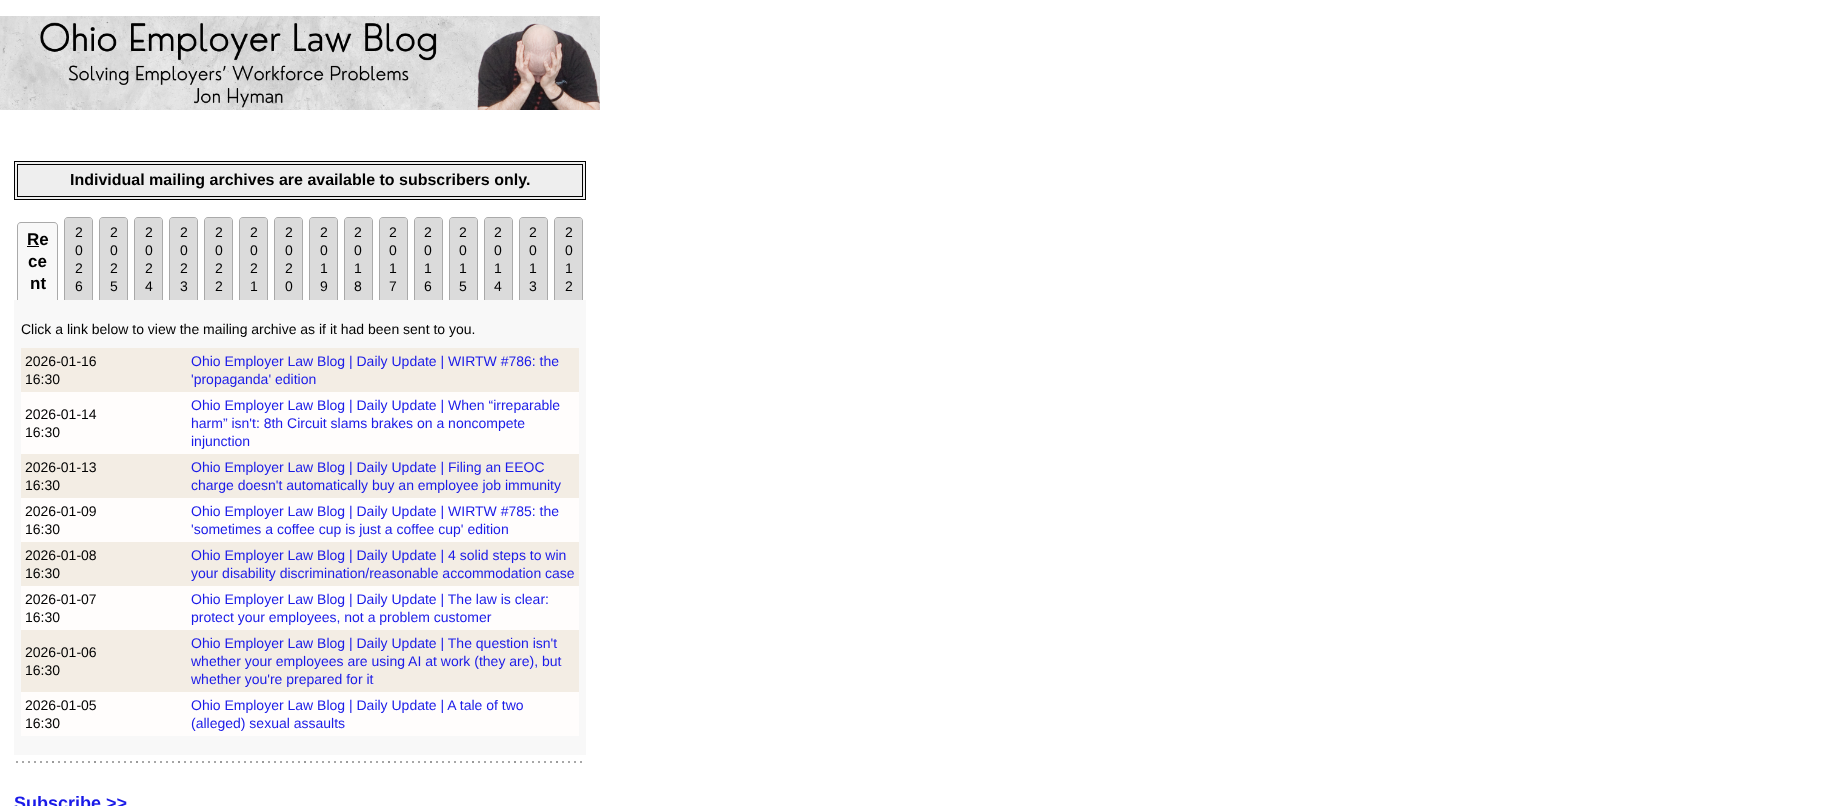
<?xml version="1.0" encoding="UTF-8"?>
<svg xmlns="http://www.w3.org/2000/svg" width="1829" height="806">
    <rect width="100%" height="100%" fill="#FFFFFF"/>
    <image x="0" y="16" width="600" height="94" href="img_01.png"/>
    <rect x="14.5" y="161.5" width="571" height="38" fill="#EEEEEE" stroke="#000000"/>
    <rect x="17.5" y="164.5" width="565" height="32" fill="none" stroke="#000000"/>
    <text x="70" y="185" font-family="Liberation Sans" font-size="16" font-weight="700" fill="#000000">Individual mailing archives are available to subscribers only.</text>
    <path d="M 21 223 H 54 C 55.5 223 57 224.5 57 226 V 300 H 18 V 226 C 18 224.5 19.5 223 21 223 Z" fill="#F8F8F8"/>
    <path d="M 21 222 H 54 C 56 222 58 224 58 226 V 300 H 17 V 226 C 17 224 19 222 21 222 Z M 21 223 H 54 C 56 223 57 224 57 226 V 300 H 18 V 226 C 18 224 19 223 21 223 Z" fill="#AAAAAA" fill-rule="evenodd"/>
    <text x="27" y="245" font-family="Liberation Sans" font-size="17" font-weight="700" fill="#000000">Re</text>
    <rect x="27" y="246" width="12" height="1" fill="#000000"/>
    <text x="28" y="267" font-family="Liberation Sans" font-size="17" font-weight="700" fill="#000000">ce</text>
    <text x="30" y="289" font-family="Liberation Sans" font-size="17" font-weight="700" fill="#000000">nt</text>
    <path d="M 68 218 H 89 C 90.5 218 92 219.5 92 221 V 300 H 65 V 221 C 65 219.5 66.5 218 68 218 Z" fill="#DBDBDB"/>
    <path d="M 68 217 H 89 C 91 217 93 219 93 221 V 300 H 64 V 221 C 64 219 66 217 68 217 Z M 68 218 H 89 C 91 218 92 219 92 221 V 300 H 65 V 221 C 65 219 66 218 68 218 Z" fill="#AAAAAA" fill-rule="evenodd"/>
    <text font-family="Liberation Sans" font-size="14" fill="#000000">
        <tspan x="75" y="237">2</tspan>
        <tspan x="75" y="255">0</tspan>
        <tspan x="75" y="273">2</tspan>
        <tspan x="75" y="291">6</tspan>
    </text>
    <path d="M 103 218 H 124 C 125.5 218 127 219.5 127 221 V 300 H 100 V 221 C 100 219.5 101.5 218 103 218 Z" fill="#DBDBDB"/>
    <path d="M 103 217 H 124 C 126 217 128 219 128 221 V 300 H 99 V 221 C 99 219 101 217 103 217 Z M 103 218 H 124 C 126 218 127 219 127 221 V 300 H 100 V 221 C 100 219 101 218 103 218 Z" fill="#AAAAAA" fill-rule="evenodd"/>
    <text font-family="Liberation Sans" font-size="14" fill="#000000">
        <tspan x="110" y="237">2</tspan>
        <tspan x="110" y="255">0</tspan>
        <tspan x="110" y="273">2</tspan>
        <tspan x="110" y="291">5</tspan>
    </text>
    <path d="M 138 218 H 159 C 160.5 218 162 219.5 162 221 V 300 H 135 V 221 C 135 219.5 136.5 218 138 218 Z" fill="#DBDBDB"/>
    <path d="M 138 217 H 159 C 161 217 163 219 163 221 V 300 H 134 V 221 C 134 219 136 217 138 217 Z M 138 218 H 159 C 161 218 162 219 162 221 V 300 H 135 V 221 C 135 219 136 218 138 218 Z" fill="#AAAAAA" fill-rule="evenodd"/>
    <text font-family="Liberation Sans" font-size="14" fill="#000000">
        <tspan x="145" y="237">2</tspan>
        <tspan x="145" y="255">0</tspan>
        <tspan x="145" y="273">2</tspan>
        <tspan x="145" y="291">4</tspan>
    </text>
    <path d="M 173 218 H 194 C 195.5 218 197 219.5 197 221 V 300 H 170 V 221 C 170 219.5 171.5 218 173 218 Z" fill="#DBDBDB"/>
    <path d="M 173 217 H 194 C 196 217 198 219 198 221 V 300 H 169 V 221 C 169 219 171 217 173 217 Z M 173 218 H 194 C 196 218 197 219 197 221 V 300 H 170 V 221 C 170 219 171 218 173 218 Z" fill="#AAAAAA" fill-rule="evenodd"/>
    <text font-family="Liberation Sans" font-size="14" fill="#000000">
        <tspan x="180" y="237">2</tspan>
        <tspan x="180" y="255">0</tspan>
        <tspan x="180" y="273">2</tspan>
        <tspan x="180" y="291">3</tspan>
    </text>
    <path d="M 208 218 H 229 C 230.5 218 232 219.5 232 221 V 300 H 205 V 221 C 205 219.5 206.5 218 208 218 Z" fill="#DBDBDB"/>
    <path d="M 208 217 H 229 C 231 217 233 219 233 221 V 300 H 204 V 221 C 204 219 206 217 208 217 Z M 208 218 H 229 C 231 218 232 219 232 221 V 300 H 205 V 221 C 205 219 206 218 208 218 Z" fill="#AAAAAA" fill-rule="evenodd"/>
    <text font-family="Liberation Sans" font-size="14" fill="#000000">
        <tspan x="215" y="237">2</tspan>
        <tspan x="215" y="255">0</tspan>
        <tspan x="215" y="273">2</tspan>
        <tspan x="215" y="291">2</tspan>
    </text>
    <path d="M 243 218 H 264 C 265.5 218 267 219.5 267 221 V 300 H 240 V 221 C 240 219.5 241.5 218 243 218 Z" fill="#DBDBDB"/>
    <path d="M 243 217 H 264 C 266 217 268 219 268 221 V 300 H 239 V 221 C 239 219 241 217 243 217 Z M 243 218 H 264 C 266 218 267 219 267 221 V 300 H 240 V 221 C 240 219 241 218 243 218 Z" fill="#AAAAAA" fill-rule="evenodd"/>
    <text font-family="Liberation Sans" font-size="14" fill="#000000">
        <tspan x="250" y="237">2</tspan>
        <tspan x="250" y="255">0</tspan>
        <tspan x="250" y="273">2</tspan>
        <tspan x="250" y="291">1</tspan>
    </text>
    <path d="M 278 218 H 299 C 300.5 218 302 219.5 302 221 V 300 H 275 V 221 C 275 219.5 276.5 218 278 218 Z" fill="#DBDBDB"/>
    <path d="M 278 217 H 299 C 301 217 303 219 303 221 V 300 H 274 V 221 C 274 219 276 217 278 217 Z M 278 218 H 299 C 301 218 302 219 302 221 V 300 H 275 V 221 C 275 219 276 218 278 218 Z" fill="#AAAAAA" fill-rule="evenodd"/>
    <text font-family="Liberation Sans" font-size="14" fill="#000000">
        <tspan x="285" y="237">2</tspan>
        <tspan x="285" y="255">0</tspan>
        <tspan x="285" y="273">2</tspan>
        <tspan x="285" y="291">0</tspan>
    </text>
    <path d="M 313 218 H 334 C 335.5 218 337 219.5 337 221 V 300 H 310 V 221 C 310 219.5 311.5 218 313 218 Z" fill="#DBDBDB"/>
    <path d="M 313 217 H 334 C 336 217 338 219 338 221 V 300 H 309 V 221 C 309 219 311 217 313 217 Z M 313 218 H 334 C 336 218 337 219 337 221 V 300 H 310 V 221 C 310 219 311 218 313 218 Z" fill="#AAAAAA" fill-rule="evenodd"/>
    <text font-family="Liberation Sans" font-size="14" fill="#000000">
        <tspan x="320" y="237">2</tspan>
        <tspan x="320" y="255">0</tspan>
        <tspan x="320" y="273">1</tspan>
        <tspan x="320" y="291">9</tspan>
    </text>
    <path d="M 348 218 H 369 C 370.5 218 372 219.5 372 221 V 300 H 345 V 221 C 345 219.5 346.5 218 348 218 Z" fill="#DBDBDB"/>
    <path d="M 348 217 H 369 C 371 217 373 219 373 221 V 300 H 344 V 221 C 344 219 346 217 348 217 Z M 348 218 H 369 C 371 218 372 219 372 221 V 300 H 345 V 221 C 345 219 346 218 348 218 Z" fill="#AAAAAA" fill-rule="evenodd"/>
    <text font-family="Liberation Sans" font-size="14" fill="#000000">
        <tspan x="354" y="237">2</tspan>
        <tspan x="354" y="255">0</tspan>
        <tspan x="354" y="273">1</tspan>
        <tspan x="354" y="291">8</tspan>
    </text>
    <path d="M 383 218 H 404 C 405.5 218 407 219.5 407 221 V 300 H 380 V 221 C 380 219.5 381.5 218 383 218 Z" fill="#DBDBDB"/>
    <path d="M 383 217 H 404 C 406 217 408 219 408 221 V 300 H 379 V 221 C 379 219 381 217 383 217 Z M 383 218 H 404 C 406 218 407 219 407 221 V 300 H 380 V 221 C 380 219 381 218 383 218 Z" fill="#AAAAAA" fill-rule="evenodd"/>
    <text font-family="Liberation Sans" font-size="14" fill="#000000">
        <tspan x="389" y="237">2</tspan>
        <tspan x="389" y="255">0</tspan>
        <tspan x="389" y="273">1</tspan>
        <tspan x="389" y="291">7</tspan>
    </text>
    <path d="M 418 218 H 439 C 440.5 218 442 219.5 442 221 V 300 H 415 V 221 C 415 219.5 416.5 218 418 218 Z" fill="#DBDBDB"/>
    <path d="M 418 217 H 439 C 441 217 443 219 443 221 V 300 H 414 V 221 C 414 219 416 217 418 217 Z M 418 218 H 439 C 441 218 442 219 442 221 V 300 H 415 V 221 C 415 219 416 218 418 218 Z" fill="#AAAAAA" fill-rule="evenodd"/>
    <text font-family="Liberation Sans" font-size="14" fill="#000000">
        <tspan x="424" y="237">2</tspan>
        <tspan x="424" y="255">0</tspan>
        <tspan x="424" y="273">1</tspan>
        <tspan x="424" y="291">6</tspan>
    </text>
    <path d="M 453 218 H 474 C 475.5 218 477 219.5 477 221 V 300 H 450 V 221 C 450 219.5 451.5 218 453 218 Z" fill="#DBDBDB"/>
    <path d="M 453 217 H 474 C 476 217 478 219 478 221 V 300 H 449 V 221 C 449 219 451 217 453 217 Z M 453 218 H 474 C 476 218 477 219 477 221 V 300 H 450 V 221 C 450 219 451 218 453 218 Z" fill="#AAAAAA" fill-rule="evenodd"/>
    <text font-family="Liberation Sans" font-size="14" fill="#000000">
        <tspan x="459" y="237">2</tspan>
        <tspan x="459" y="255">0</tspan>
        <tspan x="459" y="273">1</tspan>
        <tspan x="459" y="291">5</tspan>
    </text>
    <path d="M 488 218 H 509 C 510.5 218 512 219.5 512 221 V 300 H 485 V 221 C 485 219.5 486.5 218 488 218 Z" fill="#DBDBDB"/>
    <path d="M 488 217 H 509 C 511 217 513 219 513 221 V 300 H 484 V 221 C 484 219 486 217 488 217 Z M 488 218 H 509 C 511 218 512 219 512 221 V 300 H 485 V 221 C 485 219 486 218 488 218 Z" fill="#AAAAAA" fill-rule="evenodd"/>
    <text font-family="Liberation Sans" font-size="14" fill="#000000">
        <tspan x="494" y="237">2</tspan>
        <tspan x="494" y="255">0</tspan>
        <tspan x="494" y="273">1</tspan>
        <tspan x="494" y="291">4</tspan>
    </text>
    <path d="M 523 218 H 544 C 545.5 218 547 219.5 547 221 V 300 H 520 V 221 C 520 219.5 521.5 218 523 218 Z" fill="#DBDBDB"/>
    <path d="M 523 217 H 544 C 546 217 548 219 548 221 V 300 H 519 V 221 C 519 219 521 217 523 217 Z M 523 218 H 544 C 546 218 547 219 547 221 V 300 H 520 V 221 C 520 219 521 218 523 218 Z" fill="#AAAAAA" fill-rule="evenodd"/>
    <text font-family="Liberation Sans" font-size="14" fill="#000000">
        <tspan x="529" y="237">2</tspan>
        <tspan x="529" y="255">0</tspan>
        <tspan x="529" y="273">1</tspan>
        <tspan x="529" y="291">3</tspan>
    </text>
    <path d="M 558 218 H 579 C 580.5 218 582 219.5 582 221 V 300 H 555 V 221 C 555 219.5 556.5 218 558 218 Z" fill="#DBDBDB"/>
    <path d="M 558 217 H 579 C 581 217 583 219 583 221 V 300 H 554 V 221 C 554 219 556 217 558 217 Z M 558 218 H 579 C 581 218 582 219 582 221 V 300 H 555 V 221 C 555 219 556 218 558 218 Z" fill="#AAAAAA" fill-rule="evenodd"/>
    <text font-family="Liberation Sans" font-size="14" fill="#000000">
        <tspan x="565" y="237">2</tspan>
        <tspan x="565" y="255">0</tspan>
        <tspan x="565" y="273">1</tspan>
        <tspan x="565" y="291">2</tspan>
    </text>
    <rect x="14" y="300" width="572" height="455" fill="#F8F8F8"/>
    <text x="21" y="334" font-family="Liberation Sans" font-size="14" fill="#000000">Click a link below to view the mailing archive as if it had been sent to you.</text>
    <rect x="21" y="348" width="558" height="44" fill="#F3EDE4"/>
    <text font-family="Liberation Sans" font-size="14" fill="#000000">
        <tspan x="25" y="366">2026-01-16</tspan>
        <tspan x="25" y="384">16:30</tspan>
    </text>
    <text font-family="Liberation Sans" font-size="14" fill="#1A1AE8">
        <tspan x="191" y="366">Ohio Employer Law Blog | Daily Update | WIRTW #786: the</tspan>
        <tspan x="191" y="384">'propaganda' edition</tspan>
    </text>
    <rect x="21" y="392" width="558" height="62" fill="#FFFDFC"/>
    <text font-family="Liberation Sans" font-size="14" fill="#000000">
        <tspan x="25" y="419">2026-01-14</tspan>
        <tspan x="25" y="437">16:30</tspan>
    </text>
    <text font-family="Liberation Sans" font-size="14" fill="#1A1AE8">
        <tspan x="191" y="410">Ohio Employer Law Blog | Daily Update | When “irreparable</tspan>
        <tspan x="191" y="428">harm” isn't: 8th Circuit slams brakes on a noncompete</tspan>
        <tspan x="191" y="446">injunction</tspan>
    </text>
    <rect x="21" y="454" width="558" height="44" fill="#F3EDE4"/>
    <text font-family="Liberation Sans" font-size="14" fill="#000000">
        <tspan x="25" y="472">2026-01-13</tspan>
        <tspan x="25" y="490">16:30</tspan>
    </text>
    <text font-family="Liberation Sans" font-size="14" fill="#1A1AE8">
        <tspan x="191" y="472">Ohio Employer Law Blog | Daily Update | Filing an EEOC</tspan>
        <tspan x="191" y="490">charge doesn't automatically buy an employee job immunity</tspan>
    </text>
    <rect x="21" y="498" width="558" height="44" fill="#FFFDFC"/>
    <text font-family="Liberation Sans" font-size="14" fill="#000000">
        <tspan x="25" y="516">2026-01-09</tspan>
        <tspan x="25" y="534">16:30</tspan>
    </text>
    <text font-family="Liberation Sans" font-size="14" fill="#1A1AE8">
        <tspan x="191" y="516">Ohio Employer Law Blog | Daily Update | WIRTW #785: the</tspan>
        <tspan x="191" y="534">'sometimes a coffee cup is just a coffee cup' edition</tspan>
    </text>
    <rect x="21" y="542" width="558" height="44" fill="#F3EDE4"/>
    <text font-family="Liberation Sans" font-size="14" fill="#000000">
        <tspan x="25" y="560">2026-01-08</tspan>
        <tspan x="25" y="578">16:30</tspan>
    </text>
    <text font-family="Liberation Sans" font-size="14" fill="#1A1AE8">
        <tspan x="191" y="560">Ohio Employer Law Blog | Daily Update | 4 solid steps to win</tspan>
        <tspan x="191" y="578">your disability discrimination/reasonable accommodation case</tspan>
    </text>
    <rect x="21" y="586" width="558" height="44" fill="#FFFDFC"/>
    <text font-family="Liberation Sans" font-size="14" fill="#000000">
        <tspan x="25" y="604">2026-01-07</tspan>
        <tspan x="25" y="622">16:30</tspan>
    </text>
    <text font-family="Liberation Sans" font-size="14" fill="#1A1AE8">
        <tspan x="191" y="604">Ohio Employer Law Blog | Daily Update | The law is clear:</tspan>
        <tspan x="191" y="622">protect your employees, not a problem customer</tspan>
    </text>
    <rect x="21" y="630" width="558" height="62" fill="#F3EDE4"/>
    <text font-family="Liberation Sans" font-size="14" fill="#000000">
        <tspan x="25" y="657">2026-01-06</tspan>
        <tspan x="25" y="675">16:30</tspan>
    </text>
    <text font-family="Liberation Sans" font-size="14" fill="#1A1AE8">
        <tspan x="191" y="648">Ohio Employer Law Blog | Daily Update | The question isn't</tspan>
        <tspan x="191" y="666">whether your employees are using AI at work (they are), but</tspan>
        <tspan x="191" y="684">whether you're prepared for it</tspan>
    </text>
    <rect x="21" y="692" width="558" height="44" fill="#FFFDFC"/>
    <text font-family="Liberation Sans" font-size="14" fill="#000000">
        <tspan x="25" y="710">2026-01-05</tspan>
        <tspan x="25" y="728">16:30</tspan>
    </text>
    <text font-family="Liberation Sans" font-size="14" fill="#1A1AE8">
        <tspan x="191" y="710">Ohio Employer Law Blog | Daily Update | A tale of two</tspan>
        <tspan x="191" y="728">(alleged) sexual assaults</tspan>
    </text>
    <image x="16" y="761" width="566" height="2" href="img_02.png"/>
    <text x="14" y="809" font-family="Liberation Sans" font-size="18" font-weight="700" fill="#1A1AE8">Subscribe &gt;&gt;</text>
</svg>
